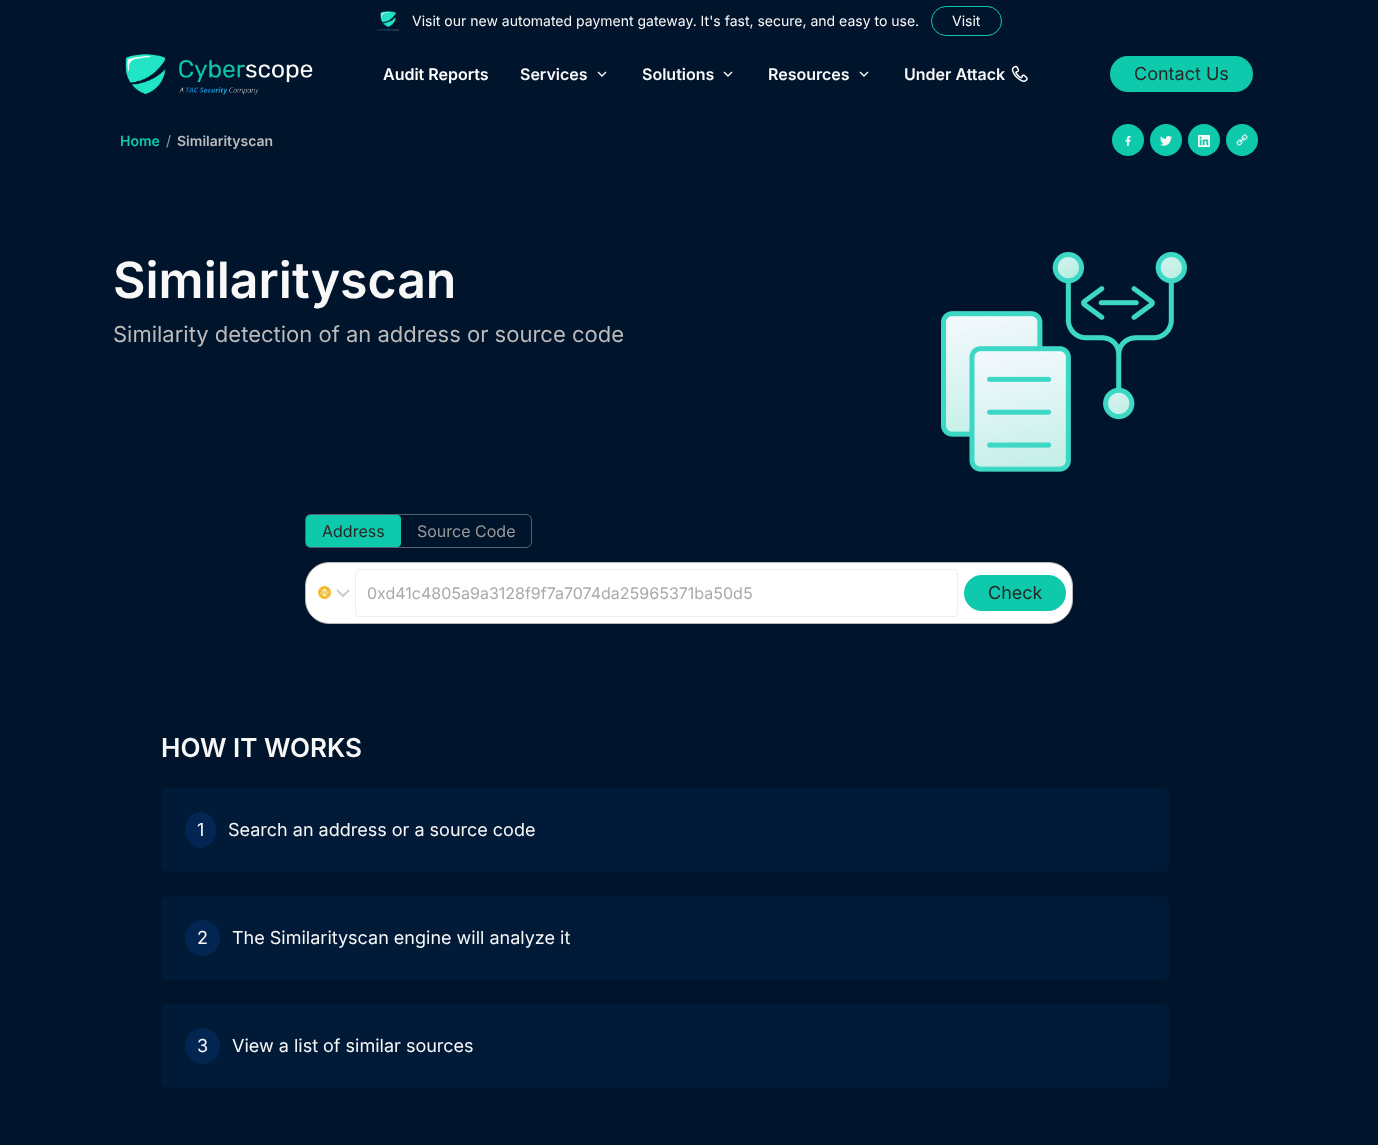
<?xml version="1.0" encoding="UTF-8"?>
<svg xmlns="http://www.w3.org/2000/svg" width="1378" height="1145">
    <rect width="100%" height="100%" fill="#00142C"/>
    <image x="377" y="11" width="23" height="21" href="img_01.png"/>
    <text x="412" y="26" font-family="Inter" font-size="14" fill="#F8F8F8">Visit our new automated payment gateway. It's fast, secure, and easy to use.</text>
    <rect x="931.5" y="6.5" width="70" height="29" rx="14.5" fill="none" stroke="#0EC9AC"/>
    <text x="952" y="26" font-family="Inter" font-size="14" fill="#F8F8F8">Visit</text>
    <image x="125" y="54" width="188" height="41" href="img_02.png"/>
    <text x="383" y="80" font-family="Inter" font-size="16" font-weight="600" fill="#FFFFFF">Audit Reports</text>
    <text x="520" y="80" font-family="Inter" font-size="16" font-weight="600" fill="#F8F8F8">Services</text>
    <path d="M 606 72 L 602 76 L 598 72" fill="none" stroke="#FFFFFF" stroke-width="1.3"/>
    <text x="642" y="80" font-family="Inter" font-size="16" font-weight="600" fill="#F8F8F8">Solutions</text>
    <path d="M 732 72 L 728 76 L 724 72" fill="none" stroke="#FFFFFF" stroke-width="1.3"/>
    <text x="768" y="80" font-family="Inter" font-size="16" font-weight="600" fill="#F8F8F8">Resources</text>
    <path d="M 868 72 L 864 76 L 860 72" fill="none" stroke="#FFFFFF" stroke-width="1.3"/>
    <text x="904" y="80" font-family="Inter" font-size="16" font-weight="600" fill="#F8F8F8">Under Attack</text>
    <image x="1011" y="65" width="17" height="17" href="img_03.png"/>
    <rect x="1111" y="57" width="141" height="34" rx="17" fill="#0EC9AC" stroke="#0EC9AC" stroke-width="2"/>
    <text x="1134" y="80" font-family="Inter" font-size="18" fill="#272727">Contact Us</text>
    <text x="120" y="146" font-family="Inter" font-size="14" font-weight="600" fill="#0EC9AC">Home</text>
    <text x="166" y="146" font-family="Inter" font-size="14" fill="#999999">/</text>
    <text x="177" y="146" font-family="Inter" font-size="14" font-weight="600" fill="#BBBBBB">Similarityscan</text>
    <circle cx="1128" cy="140" r="16" fill="#0EC9AC"/>
    <image x="1125" y="136" width="6" height="10" href="img_04.png"/>
    <circle cx="1166" cy="140" r="16" fill="#0EC9AC"/>
    <image x="1160" y="136" width="12" height="10" href="img_05.png"/>
    <circle cx="1204" cy="140" r="16" fill="#0EC9AC"/>
    <image x="1198" y="135" width="12" height="12" href="img_06.png"/>
    <circle cx="1242" cy="140" r="16" fill="#0EC9AC"/>
    <image x="1236" y="134" width="12" height="12" href="img_07.png"/>
    <text x="113" y="298" font-family="Inter" font-size="50" font-weight="600" fill="#F8F8F8">Similarityscan</text>
    <text x="113" y="342" font-family="Inter" font-size="22" fill="#BBBBBB">Similarity detection of an address or source code</text>
    <image x="941" y="252" width="246" height="220" href="img_08.png"/>
    <rect x="305.5" y="514.5" width="226" height="33" rx="5.5" fill="none" stroke="#546272"/>
    <rect x="306" y="515" width="95" height="32" rx="4" fill="#0EC9AC"/>
    <text x="322" y="537" font-family="Inter" font-size="16" fill="#272727">Address</text>
    <text x="417" y="537" font-family="Inter" font-size="16" fill="#999999">Source Code</text>
    <rect x="305.5" y="562.5" width="767" height="61" rx="23.5" fill="#FFFFFF" stroke="#B7B7B7"/>
    <image x="318" y="586" width="13" height="13" href="img_09.png"/>
    <path d="M 349 590 L 343 596 L 337 590" fill="none" stroke="#CCCCCC" stroke-width="2"/>
    <rect x="355.5" y="569.5" width="602" height="47" rx="3.5" fill="none" stroke="#EEEEEE"/>
    <text x="367" y="599" font-family="Inter" font-size="16" fill="#AAAAAA">0xd41c4805a9a3128f9f7a7074da25965371ba50d5</text>
    <rect x="965" y="576" width="100" height="34" rx="17" fill="#0EC9AC" stroke="#0EC9AC" stroke-width="2"/>
    <text x="988" y="599" font-family="Inter" font-size="18" fill="#272727">Check</text>
    <text x="161" y="757" font-family="Inter" font-size="26" font-weight="600" fill="#F8F8F8">HOW IT WORKS</text>
    <rect x="161" y="788" width="1008" height="84" rx="6" fill="#011A38"/>
    <ellipse cx="200.5" cy="830" rx="15.5" ry="18" fill="#022651"/>
    <text x="197" y="836" font-family="Inter" font-size="18" fill="#F8F8F8">1</text>
    <text x="228" y="836" font-family="Inter" font-size="18" fill="#F8F8F8">Search an address or a source code</text>
    <rect x="161" y="896" width="1008" height="84" rx="6" fill="#011A38"/>
    <rect x="185" y="920" width="35" height="36" rx="17.5" fill="#022651"/>
    <text x="197" y="944" font-family="Inter" font-size="18" fill="#F8F8F8">2</text>
    <text x="232" y="944" font-family="Inter" font-size="18" fill="#F8F8F8">The Similarityscan engine will analyze it</text>
    <rect x="161" y="1004" width="1008" height="84" rx="6" fill="#011A38"/>
    <rect x="185" y="1028" width="35" height="36" rx="17.5" fill="#022651"/>
    <text x="197" y="1052" font-family="Inter" font-size="18" fill="#F8F8F8">3</text>
    <text x="232" y="1052" font-family="Inter" font-size="18" fill="#F8F8F8">View a list of similar sources</text>
</svg>
